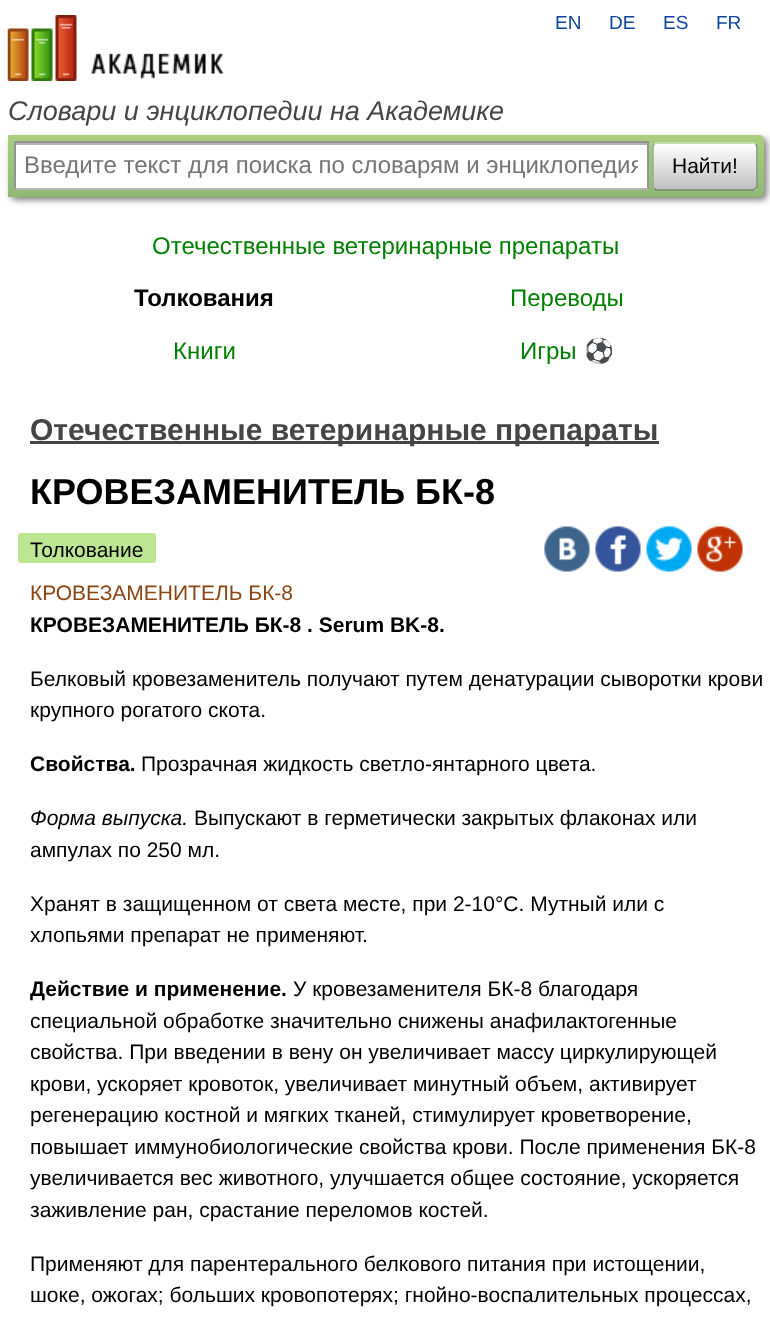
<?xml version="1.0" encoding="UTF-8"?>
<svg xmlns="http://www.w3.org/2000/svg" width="770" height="1317">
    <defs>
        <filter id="blur1" x="-50%" y="-200%" width="200%" height="500%"><feGaussianBlur stdDeviation="3"/></filter>
        <linearGradient id="g1" gradientUnits="userSpaceOnUse" x1="386" y1="135" x2="386" y2="197"><stop offset="0" stop-color="#ABCF7E"/><stop offset="1" stop-color="#8EB874"/></linearGradient>
        <clipPath id="clip1"><rect x="24" y="152" width="614" height="27"/></clipPath>
        <clipPath id="clip2"><rect x="653" y="143" width="105" height="48" rx="5"/></clipPath>
        <linearGradient id="g2" gradientUnits="userSpaceOnUse" x1="705" y1="144" x2="705" y2="189"><stop offset="0" stop-color="#FFFFFF"/><stop offset="1" stop-color="#C1C1C1"/></linearGradient>
        <linearGradient id="g3" gradientUnits="userSpaceOnUse" x1="705" y1="189" x2="705" y2="234"><stop offset="0" stop-color="#FFFFFF"/><stop offset="1" stop-color="#C1C1C1"/></linearGradient>
    </defs>
    <rect width="100%" height="100%" fill="#FFFFFF"/>
    <image x="7" y="15" width="217" height="66" href="img_01.png"/>
    <text x="555" y="29" font-family="Liberation Sans" font-size="19" fill="#0D44A0">EN</text>
    <text x="609" y="29" font-family="Liberation Sans" font-size="19" fill="#0D44A0">DE</text>
    <text x="663" y="29" font-family="Liberation Sans" font-size="19" fill="#0D44A0">ES</text>
    <text x="716" y="29" font-family="Liberation Sans" font-size="19" fill="#0D44A0">FR</text>
    <text x="8" y="120" font-family="Liberation Sans" font-size="27" font-style="italic" fill="#454545">Словари и энциклопедии на Академике</text>
    <rect x="11" y="138" width="756" height="62" rx="5" fill="#000000" fill-opacity="0.5" filter="url(#blur1)"/>
    <path d="M 8 135 H 759 C 762 135 764 137 764 140 V 192 C 764 195 762 197 759 197 H 8 Z" fill="url(#g1)"/>
    <rect x="16" y="145" width="631" height="43" fill="#FFFFFF"/>
    <rect x="15" y="143" width="632" height="2" fill="#B3B3B3"/>
    <rect x="14" y="141" width="634" height="2" fill="#949494"/>
    <rect x="647" y="141" width="2" height="48" fill="#949494"/>
    <rect x="14" y="188" width="634" height="2" fill="#B4B4B4"/>
    <rect x="14" y="141" width="2" height="48" fill="#949494"/>
    <g clip-path="url(#clip1)">
        <text x="24" y="173" font-family="Liberation Sans" font-size="24" fill="#757575">Введите текст для поиска по словарям и энциклопедия</text>
    </g>
    <g clip-path="url(#clip2)">
        <rect x="653" y="144" width="105" height="45" fill="url(#g2)"/>
        <rect x="653" y="189" width="105" height="2" fill="url(#g3)"/>
    </g>
    <path d="M 654.5 144.5 C 655 143.5 656 143 657 143 H 753 C 754 143 755 143.5 755.5 144.5" fill="none" stroke="#D1E4BC" stroke-width="1.5"/>
    <path d="M 755.5 144.5 C 756.5 145 757 146 757 147 V 186 C 757 187 756.5 188 755.5 188.5" fill="none" stroke="#7A8E69" stroke-width="1.5"/>
    <path d="M 755.5 188.5 C 755 189.5 754 190 753 190 H 657 C 656 190 655 189.5 654.5 188.5" fill="none" stroke="#5D7250" stroke-width="1.5"/>
    <path d="M 654.5 188.5 C 653.5 188 653 187 653 186 V 147 C 653 146 653.5 145 654.5 144.5" fill="none" stroke="#9AAE89" stroke-width="1.5"/>
    <text x="672" y="173" font-family="Liberation Sans" font-size="21" fill="#000000">Найти!</text>
    <text x="152" y="254" font-family="Liberation Sans" font-size="24" fill="#008000">Отечественные ветеринарные препараты</text>
    <text x="134" y="306" font-family="Liberation Sans" font-size="24" font-weight="700" fill="#000000">Толкования</text>
    <text x="510" y="306" font-family="Liberation Sans" font-size="24" fill="#008000">Переводы</text>
    <text x="173" y="359" font-family="Liberation Sans" font-size="24" fill="#008000">Книги</text>
    <text x="520" y="359" font-family="Liberation Sans" font-size="24" fill="#008000">Игры</text>
    <text x="584" y="359" font-family="Noto Color Emoji" font-size="24" fill="#008000">⚽</text>
    <rect x="30" y="441" width="629" height="3" fill="#454545"/>
    <text x="30" y="440" font-family="Liberation Sans" font-size="30" font-weight="700" fill="#454545">Отечественные ветеринарные препараты</text>
    <text x="30" y="504" font-family="Liberation Sans" font-size="36" font-weight="700" fill="#000000">КРОВЕЗАМЕНИТЕЛЬ БК-8</text>
    <rect x="18" y="533" width="138" height="30" rx="3" fill="#BDE693"/>
    <text x="30" y="557" font-family="Liberation Sans" font-size="21" fill="#000000">Толкование</text>
    <image x="544" y="526" width="46" height="46" href="img_02.png"/>
    <image x="595" y="526" width="46" height="46" href="img_03.png"/>
    <image x="646" y="526" width="46" height="46" href="img_04.png"/>
    <image x="697" y="526" width="46" height="46" href="img_05.png"/>
    <text x="30" y="600" font-family="Liberation Sans" font-size="21" fill="#8B4513">КРОВЕЗАМЕНИТЕЛЬ БК-8</text>
    <text x="30" y="632" font-family="Liberation Sans" font-size="21" font-weight="700" fill="#000000">КРОВЕЗАМЕНИТЕЛЬ БК-8 . Serum BK-8.</text>
    <text font-family="Liberation Sans" font-size="21" fill="#000000">
        <tspan x="30" y="686">Белковый кровезаменитель получают путем денатурации сыворотки крови</tspan>
        <tspan x="30" y="717">крупного рогатого скота.</tspan>
    </text>
    <text x="30" y="771" font-family="Liberation Sans" font-size="21" font-weight="700" fill="#000000">Свойства.</text>
    <text x="141" y="771" font-family="Liberation Sans" font-size="21" fill="#000000">Прозрачная жидкость светло-янтарного цвета.</text>
    <text x="30" y="825" font-family="Liberation Sans" font-size="21" font-style="italic" fill="#000000">Форма выпуска.</text>
    <text x="194" y="825" font-family="Liberation Sans" font-size="21" fill="#000000">Выпускают в герметически закрытых флаконах или</text>
    <text x="30" y="857" font-family="Liberation Sans" font-size="21" fill="#000000">ампулах по 250 мл.</text>
    <text font-family="Liberation Sans" font-size="21" fill="#000000">
        <tspan x="30" y="911">Хранят в защищенном от света месте, при 2-10°С. Мутный или с</tspan>
        <tspan x="30" y="942">хлопьями препарат не применяют.</tspan>
    </text>
    <text x="30" y="996" font-family="Liberation Sans" font-size="21" font-weight="700" fill="#000000">Действие и применение.</text>
    <text x="293" y="996" font-family="Liberation Sans" font-size="21" fill="#000000">У кровезаменителя БК-8 благодаря</text>
    <text font-family="Liberation Sans" font-size="21" fill="#000000">
        <tspan x="30" y="1028">специальной обработке значительно снижены анафилактогенные</tspan>
        <tspan x="30" y="1059">свойства. При введении в вену он увеличивает массу циркулирующей</tspan>
        <tspan x="30" y="1091">крови, ускоряет кровоток, увеличивает минутный объем, активирует</tspan>
        <tspan x="30" y="1122">регенерацию костной и мягких тканей, стимулирует кроветворение,</tspan>
        <tspan x="30" y="1154">повышает иммунобиологические свойства крови. После применения БК-8</tspan>
        <tspan x="30" y="1185">увеличивается вес животного, улучшается общее состояние, ускоряется</tspan>
        <tspan x="30" y="1217">заживление ран, срастание переломов костей.</tspan>
    </text>
    <text font-family="Liberation Sans" font-size="21" fill="#000000">
        <tspan x="30" y="1271">Применяют для парентерального белкового питания при истощении,</tspan>
        <tspan x="30" y="1302">шоке, ожогах; больших кровопотерях; гнойно-воспалительных процессах,</tspan>
    </text>
</svg>
